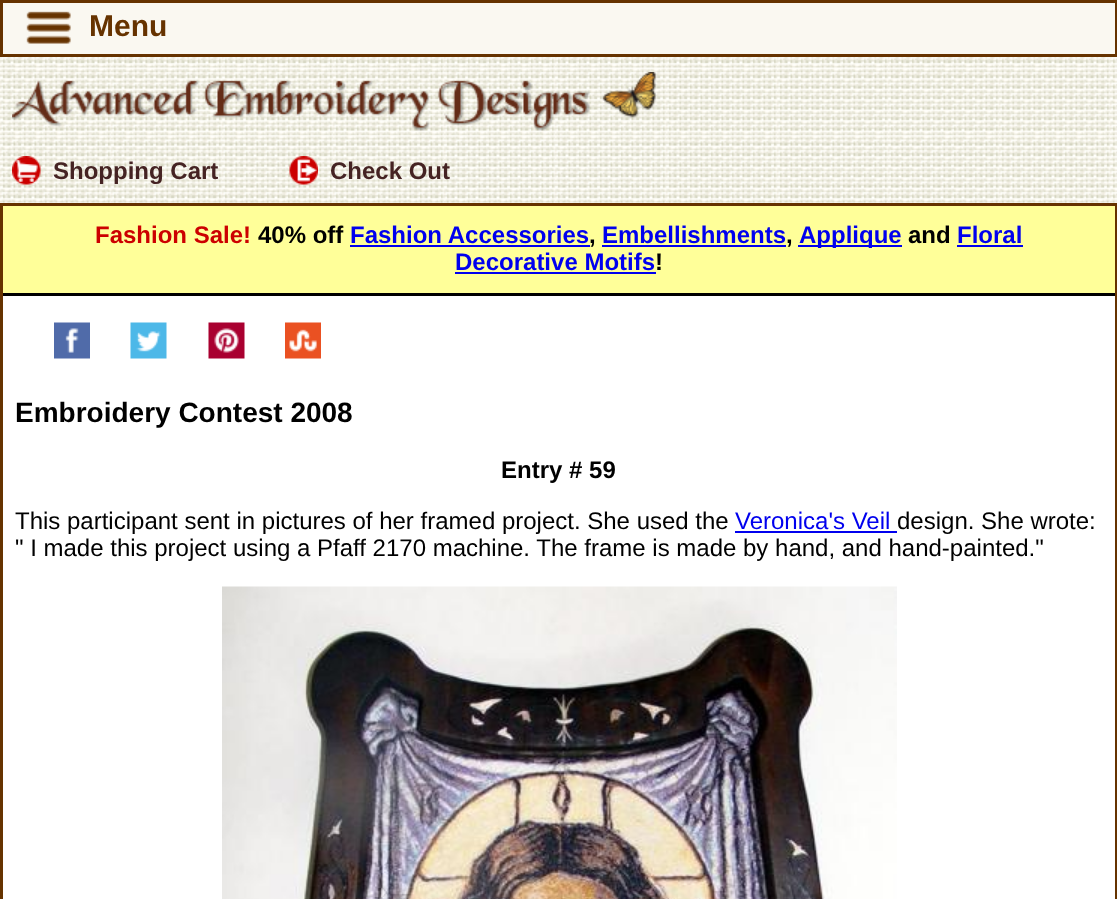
<?xml version="1.0" encoding="UTF-8"?>
<svg xmlns="http://www.w3.org/2000/svg" width="1117" height="899">
    <rect width="100%" height="100%" fill="#FFFFFF"/>
    <image x="0" y="57" width="1117" height="146" href="img_01.png"/>
    <rect x="1.5" y="1.5" width="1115" height="54" fill="#FAF8F1" stroke="#663300" stroke-width="3"/>
    <image x="26" y="11" width="45" height="33" href="img_02.png"/>
    <text x="89" y="36" font-family="Liberation Sans" font-size="30" font-weight="700" fill="#663300">Menu</text>
    <image x="12" y="72" width="645" height="59" href="img_03.png"/>
    <image x="12" y="156" width="29" height="29" href="img_04.png"/>
    <text x="53" y="179" font-family="Liberation Sans" font-size="24" font-weight="700" fill="#452323">Shopping Cart</text>
    <image x="289" y="156" width="29" height="29" href="img_05.png"/>
    <text x="330" y="179" font-family="Liberation Sans" font-size="24" font-weight="700" fill="#452323">Check Out</text>
    <rect x="1.5" y="204.5" width="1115" height="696" fill="none" stroke="#663300" stroke-width="3"/>
    <rect x="3" y="206" width="1112" height="87" fill="#FFFF99"/>
    <rect x="3" y="293" width="1112" height="3" fill="#000000"/>
    <text x="95" y="243" font-family="Liberation Sans" font-size="24" font-weight="700" fill="#CC0000">Fashion Sale!</text>
    <text x="258" y="243" font-family="Liberation Sans" font-size="24" font-weight="700" fill="#000000">40% off</text>
    <text x="350" y="243" font-family="Liberation Sans" font-size="24" font-weight="700" fill="#0000EE">Fashion Accessories</text>
    <rect x="350" y="245" width="240" height="2" fill="#0000EE"/>
    <text x="589" y="243" font-family="Liberation Sans" font-size="24" font-weight="700" fill="#000000">,</text>
    <text x="602" y="243" font-family="Liberation Sans" font-size="24" font-weight="700" fill="#0000EE">Embellishments</text>
    <rect x="602" y="245" width="184" height="2" fill="#0000EE"/>
    <text x="786" y="243" font-family="Liberation Sans" font-size="24" font-weight="700" fill="#000000">,</text>
    <rect x="798" y="245" width="104" height="2" fill="#0000EE"/>
    <text x="799" y="243" font-family="Liberation Sans" font-size="24" font-weight="700" fill="#0000EE">Applique</text>
    <text x="908" y="243" font-family="Liberation Sans" font-size="24" font-weight="700" fill="#000000">and</text>
    <text x="957" y="243" font-family="Liberation Sans" font-size="24" font-weight="700" fill="#0000EE">Floral</text>
    <rect x="957" y="245" width="66" height="2" fill="#0000EE"/>
    <text x="455" y="270" font-family="Liberation Sans" font-size="24" font-weight="700" fill="#0000EE">Decorative Motifs</text>
    <rect x="455" y="272" width="201" height="2" fill="#0000EE"/>
    <text x="655" y="270" font-family="Liberation Sans" font-size="24" font-weight="700" fill="#000000">!</text>
    <image x="54" y="322" width="36" height="37" href="img_06.png"/>
    <image x="130" y="322" width="37" height="37" href="img_07.png"/>
    <image x="208" y="322" width="37" height="37" href="img_08.png"/>
    <image x="285" y="322" width="36" height="37" href="img_09.png"/>
    <text x="15" y="422" font-family="Liberation Sans" font-size="28" font-weight="700" fill="#000000">Embroidery Contest 2008</text>
    <text x="501" y="478" font-family="Liberation Sans" font-size="24" font-weight="700" fill="#000000">Entry # 59</text>
    <text x="15" y="529" font-family="Liberation Sans" font-size="24" fill="#000000">This participant sent in pictures of her framed project. She used the</text>
    <text x="735" y="529" font-family="Liberation Sans" font-size="24" fill="#0000EE">Veronica's Veil</text>
    <rect x="735" y="531" width="162" height="2" fill="#0000EE"/>
    <text x="897" y="529" font-family="Liberation Sans" font-size="24" fill="#000000">design. She wrote:</text>
    <text x="15" y="556" font-family="Liberation Sans" font-size="24" fill="#000000">" I made this project using a Pfaff 2170 machine. The frame is made by hand, and hand-painted."</text>
    <image x="222" y="586" width="675" height="313" href="img_10.png"/>
</svg>
